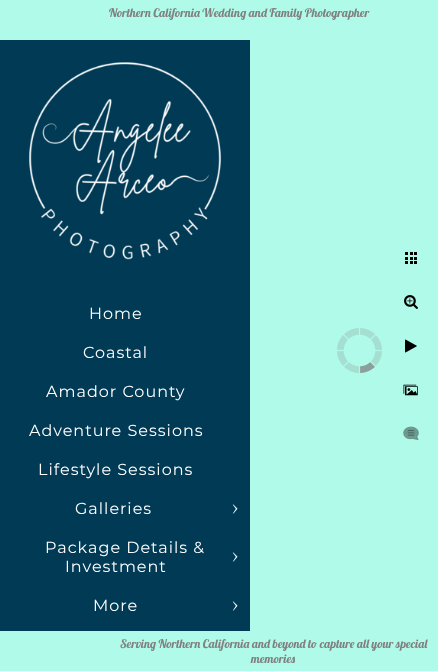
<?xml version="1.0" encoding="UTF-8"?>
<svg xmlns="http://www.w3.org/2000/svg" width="438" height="671">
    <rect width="100%" height="100%" fill="#AFFAE8"/>
    <text x="109" y="17" font-family="Lobster" font-size="12" fill="#808080">Northern California Wedding and Family Photographer</text>
    <rect x="0" y="40" width="250" height="591" fill="#013A55"/>
    <image x="29" y="62" width="193" height="198" href="img_01.png"/>
    <text x="89" y="319" font-family="Montserrat" font-size="16" font-weight="100" letter-spacing="1" fill="#FFFFFF">Home</text>
    <text x="83" y="358" font-family="Montserrat" font-size="16" font-weight="100" letter-spacing="1" fill="#FFFFFF">Coastal</text>
    <text x="46" y="397" font-family="Montserrat" font-size="16" font-weight="100" letter-spacing="1" fill="#FFFFFF">Amador County</text>
    <text x="29" y="436" font-family="Montserrat" font-size="16" font-weight="100" letter-spacing="1" fill="#FFFFFF">Adventure Sessions</text>
    <text x="38" y="475" font-family="Montserrat" font-size="16" font-weight="100" letter-spacing="1" fill="#FFFFFF">Lifestyle Sessions</text>
    <text x="75" y="514" font-family="Montserrat" font-size="16" font-weight="100" letter-spacing="1" fill="#FFFFFF">Galleries</text>
    <image x="232" y="504" width="6" height="10" href="img_02.png"/>
    <text x="45" y="553" font-family="Montserrat" font-size="16" font-weight="100" letter-spacing="1" fill="#FFFFFF">Package Details &amp;</text>
    <image x="232" y="552" width="6" height="10" href="img_02.png"/>
    <text x="65" y="572" font-family="Montserrat" font-size="16" font-weight="100" letter-spacing="1" fill="#FFFFFF">Investment</text>
    <text x="93" y="611" font-family="Montserrat" font-size="16" font-weight="100" letter-spacing="1" fill="#FFFFFF">More</text>
    <image x="232" y="601" width="6" height="10" href="img_02.png"/>
    <image x="337" y="328" width="45" height="45" href="img_03.png"/>
    <image x="405" y="252" width="12" height="12" href="img_04.png"/>
    <image x="404" y="295" width="14" height="14" href="img_05.png"/>
    <image x="405" y="339" width="12" height="14" href="img_06.png"/>
    <image x="403" y="384" width="15" height="12" href="img_07.png"/>
    <image x="403" y="426" width="16" height="15" href="img_08.png"/>
    <text x="120" y="648" font-family="Lobster" font-size="12" fill="#808080">Serving Northern California and beyond to capture all your special</text>
    <text x="251" y="663" font-family="Lobster" font-size="12" fill="#808080">memories</text>
</svg>
